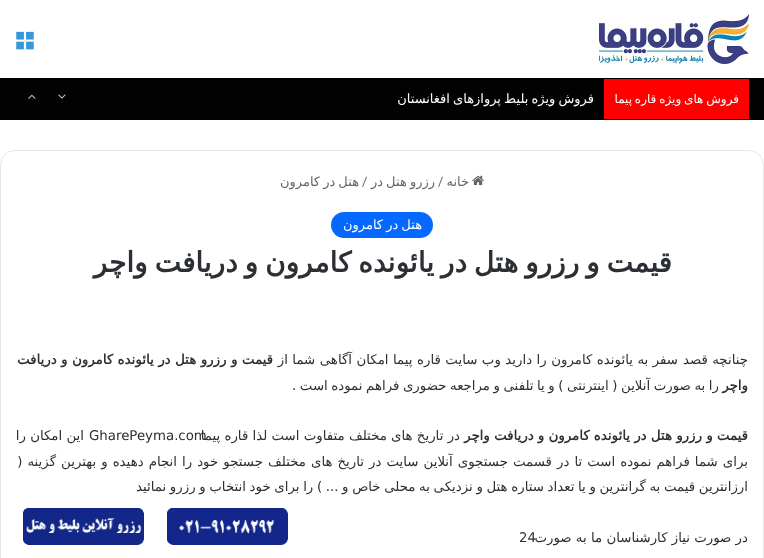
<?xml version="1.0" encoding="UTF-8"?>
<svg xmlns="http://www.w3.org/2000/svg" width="764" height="558">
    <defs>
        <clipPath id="clip1"><rect x="397" y="79" width="197" height="40"/></clipPath>
    </defs>
    <rect width="100%" height="100%" fill="#FFFFFF"/>
    <image x="599" y="14" width="150" height="50" href="img_01.png"/>
    <image x="16" y="31" width="18" height="19" href="img_02.png"/>
    <rect x="0" y="78" width="764" height="42" fill="#020202"/>
    <rect x="604" y="79" width="145" height="40" fill="#FF0000"/>
    <text x="739" y="103" word-spacing="-1" font-family="DejaVu Sans" font-size="12" direction="rtl" fill="#FFFFFF">فروش های ویژه قاره پیما</text>
    <g clip-path="url(#clip1)">
        <text x="594" y="103" word-spacing="-1" font-family="DejaVu Sans" font-size="13" direction="rtl" fill="#FFFFFF">فروش ویژه بلیط پروازهای افغانستان</text>
    </g>
    <image x="58" y="94" width="8" height="5" href="img_03.png"/>
    <image x="28" y="94" width="8" height="5" href="img_04.png"/>
    <rect x="0.5" y="150.5" width="763" height="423" rx="14.5" fill="none" stroke="#E6E6E6"/>
    <image x="472" y="175" width="12" height="11" href="img_05.png"/>
    <text x="469" y="186" font-family="DejaVu Sans" font-size="13" direction="rtl" fill="#666666">خانه</text>
    <text x="438" y="186" font-family="Roboto" font-size="13" fill="#666666">/</text>
    <text x="435" y="186" word-spacing="-1" font-family="DejaVu Sans" font-size="13" direction="rtl" fill="#666666">رزرو هتل در</text>
    <text x="362" y="186" font-family="Roboto" font-size="13" fill="#666666">/</text>
    <text x="359" y="186" word-spacing="-1" font-family="DejaVu Sans" font-size="13" direction="rtl" fill="#666666">هتل در کامرون</text>
    <rect x="331" y="212" width="102" height="26" rx="13" fill="#0669FF"/>
    <text x="422" y="229" word-spacing="-1" font-family="DejaVu Sans" font-size="13" direction="rtl" fill="#FFFFFF">هتل در کامرون</text>
    <text x="672" y="272" word-spacing="-2" font-family="DejaVu Sans" font-size="28" font-weight="700" direction="rtl" fill="#2C2F34">قیمت و رزرو هتل در یائونده کامرون و دریافت واچر</text>
    <text x="748" y="364" font-family="DejaVu Sans" font-size="13.33" direction="rtl" fill="#2C2F34">چنانچه</text>
    <text x="708" y="364" font-family="DejaVu Sans" font-size="13.33" direction="rtl" fill="#2C2F34">قصد</text>
    <text x="678" y="364" word-spacing="0.25" font-family="DejaVu Sans" font-size="13.33" direction="rtl" fill="#2C2F34">سفر به یائونده کامرون را دارید وب سایت قاره پیما امکان آگاهی شما از</text>
    <text x="273" y="364" word-spacing="0.25" font-family="DejaVu Sans" font-size="13.33" font-weight="700" direction="rtl" fill="#2C2F34">قیمت و رزرو هتل در یائونده کامرون و دریافت</text>
    <text x="748" y="390" font-family="DejaVu Sans" font-size="13.33" font-weight="700" direction="rtl" fill="#2C2F34">واچر</text>
    <text x="719" y="390" word-spacing="-0.7" font-family="DejaVu Sans" font-size="13.33" direction="rtl" fill="#2C2F34">را به صورت آنلاین ( اینترنتی ) و یا تلفنی و مراجعه حضوری فراهم نموده است .</text>
    <text x="748" y="440" font-family="DejaVu Sans" font-size="13.33" font-weight="700" direction="rtl" fill="#2C2F34">قیمت و رزرو هتل در یائونده کامرون و دریافت واچر</text>
    <text x="89" y="440" font-family="DejaVu Sans" font-size="13.33" fill="#2C2F34">GharePeyma.com</text>
    <text x="460" y="440" font-family="DejaVu Sans" font-size="13.33" direction="rtl" fill="#2C2F34">در تاریخ های مختلف متفاوت است لذا قاره پیما</text>
    <text x="84" y="440" font-family="DejaVu Sans" font-size="13.33" direction="rtl" fill="#2C2F34">این امکان را</text>
    <text font-family="DejaVu Sans" font-size="13.33" direction="rtl" fill="#2C2F34">
        <tspan x="748" y="466" word-spacing="0.8">برای شما فراهم نموده است تا در قسمت جستجوی آنلاین سایت در تاریخ های مختلف جستجو خود را انجام دهیده و بهترین گزینه (</tspan>
        <tspan x="748" y="491" word-spacing="-0.6">ارزانترین قیمت به گرانترین و یا تعداد ستاره هتل و نزدیکی به محلی خاص و ... ) را برای خود انتخاب و رزرو نمائید</tspan>
    </text>
    <text x="519" y="542" font-family="DejaVu Sans" font-size="13.33" fill="#2C2F34">24</text>
    <text x="748" y="542" font-family="DejaVu Sans" font-size="13.33" direction="rtl" fill="#2C2F34">در صورت نیاز کارشناسان ما به صورت</text>
    <image x="167" y="508" width="121" height="37" href="img_06.png"/>
    <image x="23" y="508" width="121" height="37" href="img_07.png"/>
</svg>
